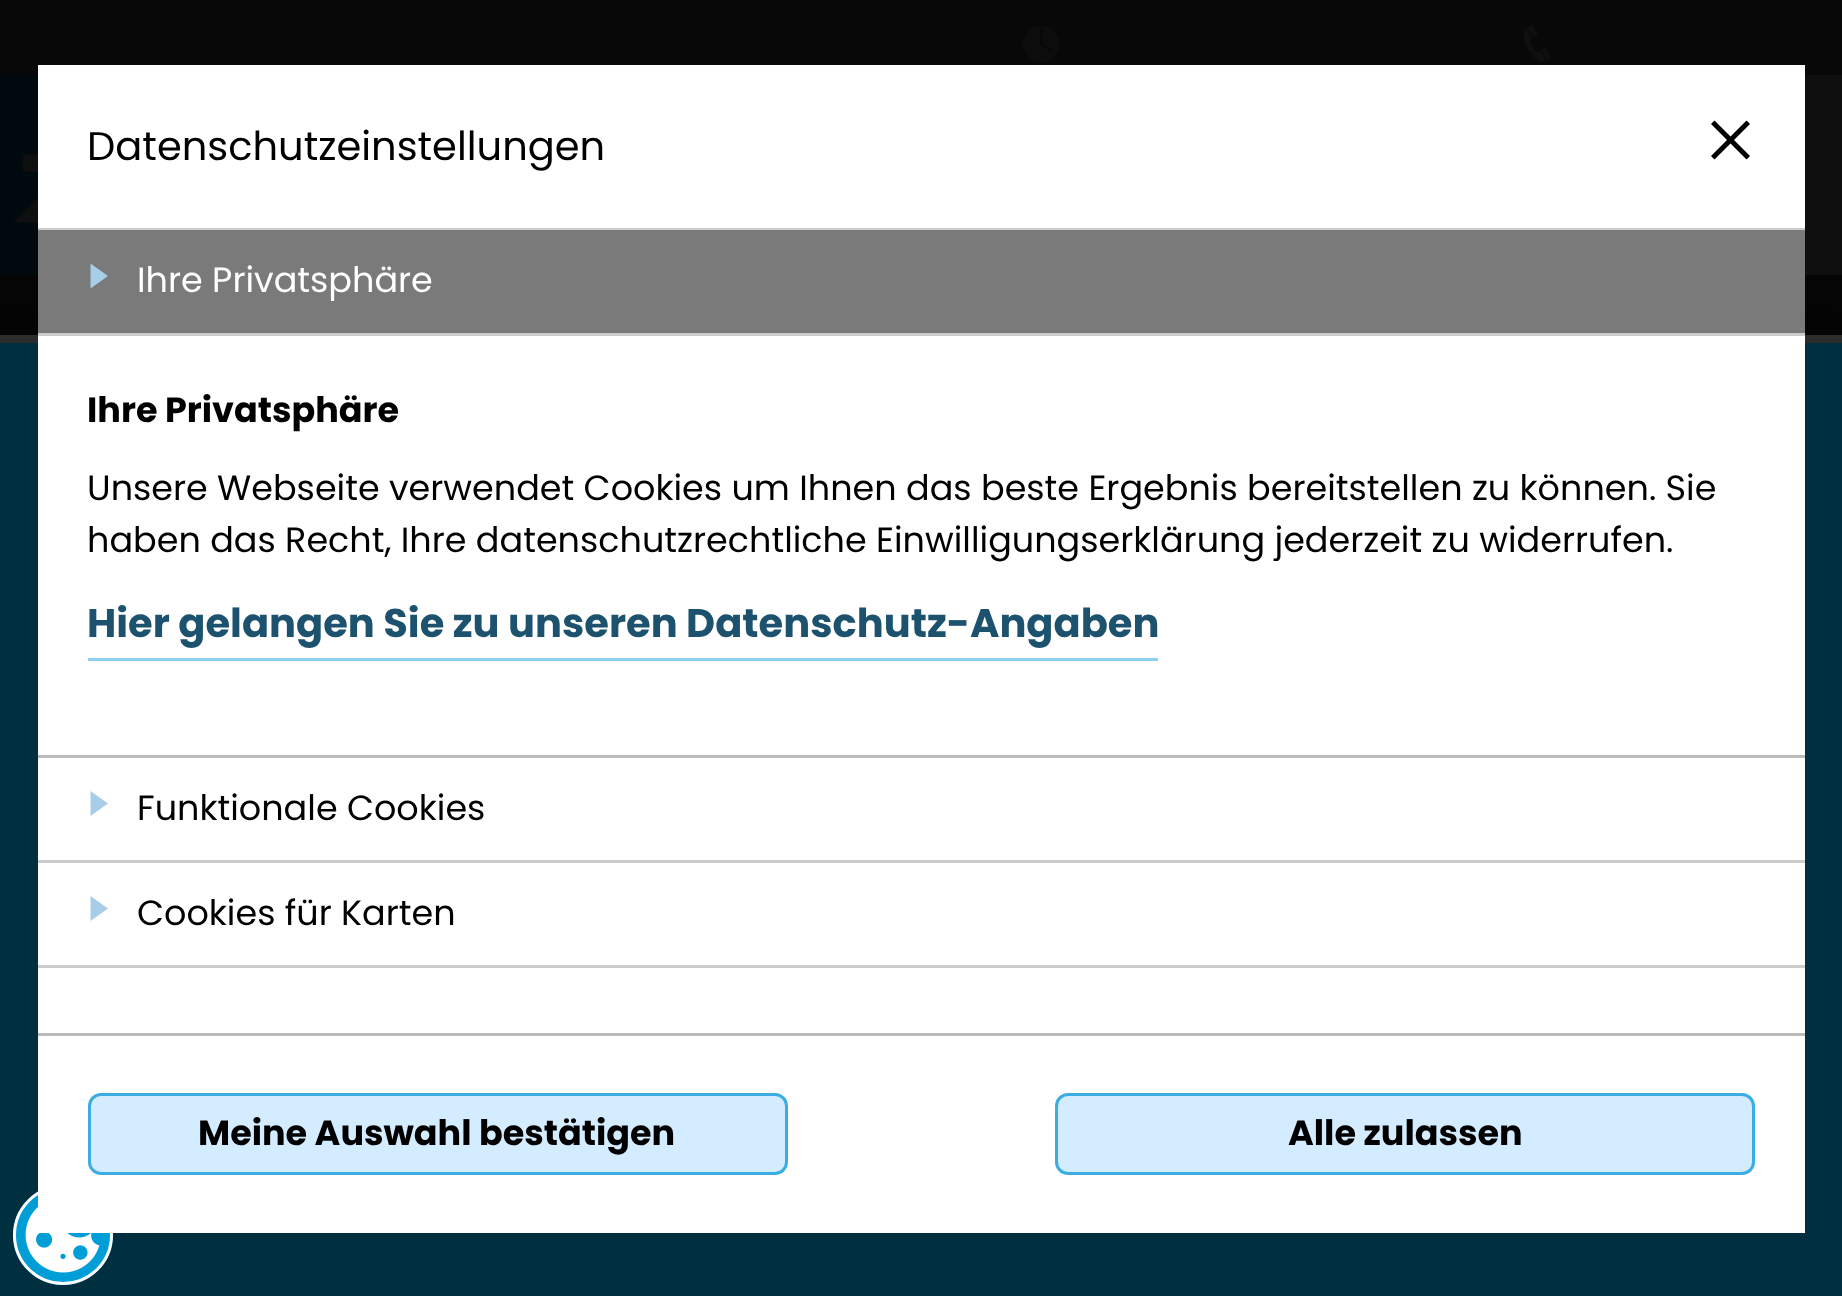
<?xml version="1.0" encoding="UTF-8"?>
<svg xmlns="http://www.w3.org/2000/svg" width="1842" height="1296">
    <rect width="100%" height="100%" fill="#FFFFFF"/>
    <rect x="1805" y="75" width="37" height="200" fill="#0F0F0F"/>
    <rect x="0" y="0" width="1842" height="75" fill="#080808"/>
    <image x="1023" y="25" width="37" height="37" href="img_01.png"/>
    <image x="1523" y="25" width="28" height="37" href="img_02.png"/>
    <rect x="0" y="75" width="38" height="200" fill="#00090D"/>
    <image x="13" y="154" width="25" height="69" href="img_03.png"/>
    <rect x="0" y="343" width="1842" height="953" fill="#002F40"/>
    <rect x="0" y="335" width="1842" height="8" fill="#2C2C2C"/>
    <circle cx="63" cy="1235" r="50" fill="#009ED6"/>
    <image x="25" y="1207" width="75" height="66" href="img_04.png"/>
    <circle cx="63" cy="1235" r="48.5" fill="none" stroke="#FFFFFF" stroke-width="3"/>
    <image x="0" y="275" width="1842" height="60" href="img_05.png"/>
    <rect x="38" y="65" width="1767" height="1168" fill="#FFFFFF"/>
    <rect x="38" y="228" width="1767" height="2" fill="#CCCCCC"/>
    <text x="87" y="160" font-family="Poppins" font-size="40" fill="#000000">Datenschutzeinstellungen</text>
    <path d="M 1711 156 L 1746.5 120.5 L 1750 124 L 1714.5 159.5 Z" fill="#000000"/>
    <path d="M 1714.5 120.5 L 1750 156 L 1746.5 159.5 L 1711 124 Z" fill="#000000"/>
    <rect x="38" y="230" width="1767" height="103" fill="#7A7A7A"/>
    <rect x="38" y="333" width="1767" height="3" fill="#CCCCCC"/>
    <path d="M 90.5 288.5 V 263.5 L 108 276 Z" fill="#A8CDE8"/>
    <text x="137" y="292" font-family="Poppins" font-size="35" fill="#FFFFFF">Ihre Privatsphäre</text>
    <rect x="38" y="755" width="1767" height="3" fill="#BBBBBB"/>
    <text x="87" y="422" font-family="Poppins" font-size="35" font-weight="700" fill="#000000">Ihre Privatsphäre</text>
    <text font-family="Poppins" font-size="35" fill="#000000">
        <tspan x="87" y="500">Unsere Webseite verwendet Cookies um Ihnen das beste Ergebnis bereitstellen zu können. Sie</tspan>
        <tspan x="87" y="552">haben das Recht, Ihre datenschutzrechtliche Einwilligungserklärung jederzeit zu widerrufen.</tspan>
    </text>
    <text x="87" y="637" font-family="Poppins" font-size="40" font-weight="700" fill="#1D526E">Hier gelangen Sie zu unseren Datenschutz-Angaben</text>
    <rect x="88" y="658" width="1070" height="3" fill="#8ECFF2"/>
    <rect x="38" y="860" width="1767" height="3" fill="#CCCCCC"/>
    <path d="M 90.5 816 V 791 L 108 803.5 Z" fill="#A8CDE8"/>
    <text x="137" y="820" font-family="Poppins" font-size="35" fill="#000000">Funktionale Cookies</text>
    <rect x="38" y="965" width="1767" height="3" fill="#CCCCCC"/>
    <path d="M 90.5 921 V 896 L 108 908.5 Z" fill="#A8CDE8"/>
    <text x="137" y="925" font-family="Poppins" font-size="35" fill="#000000">Cookies für Karten</text>
    <rect x="38" y="1033" width="1767" height="3" fill="#BBBBBB"/>
    <rect x="89.5" y="1094.5" width="697" height="79" rx="11.5" fill="#D3ECFF" stroke="#3CADE3" stroke-width="3"/>
    <text x="198" y="1145" font-family="Poppins" font-size="35" font-weight="700" fill="#000000">Meine Auswahl bestätigen</text>
    <rect x="1056.5" y="1094.5" width="697" height="79" rx="11.5" fill="#D3ECFF" stroke="#3CADE3" stroke-width="3"/>
    <text x="1288" y="1145" font-family="Poppins" font-size="35" font-weight="700" fill="#000000">Alle zulassen</text>
</svg>
